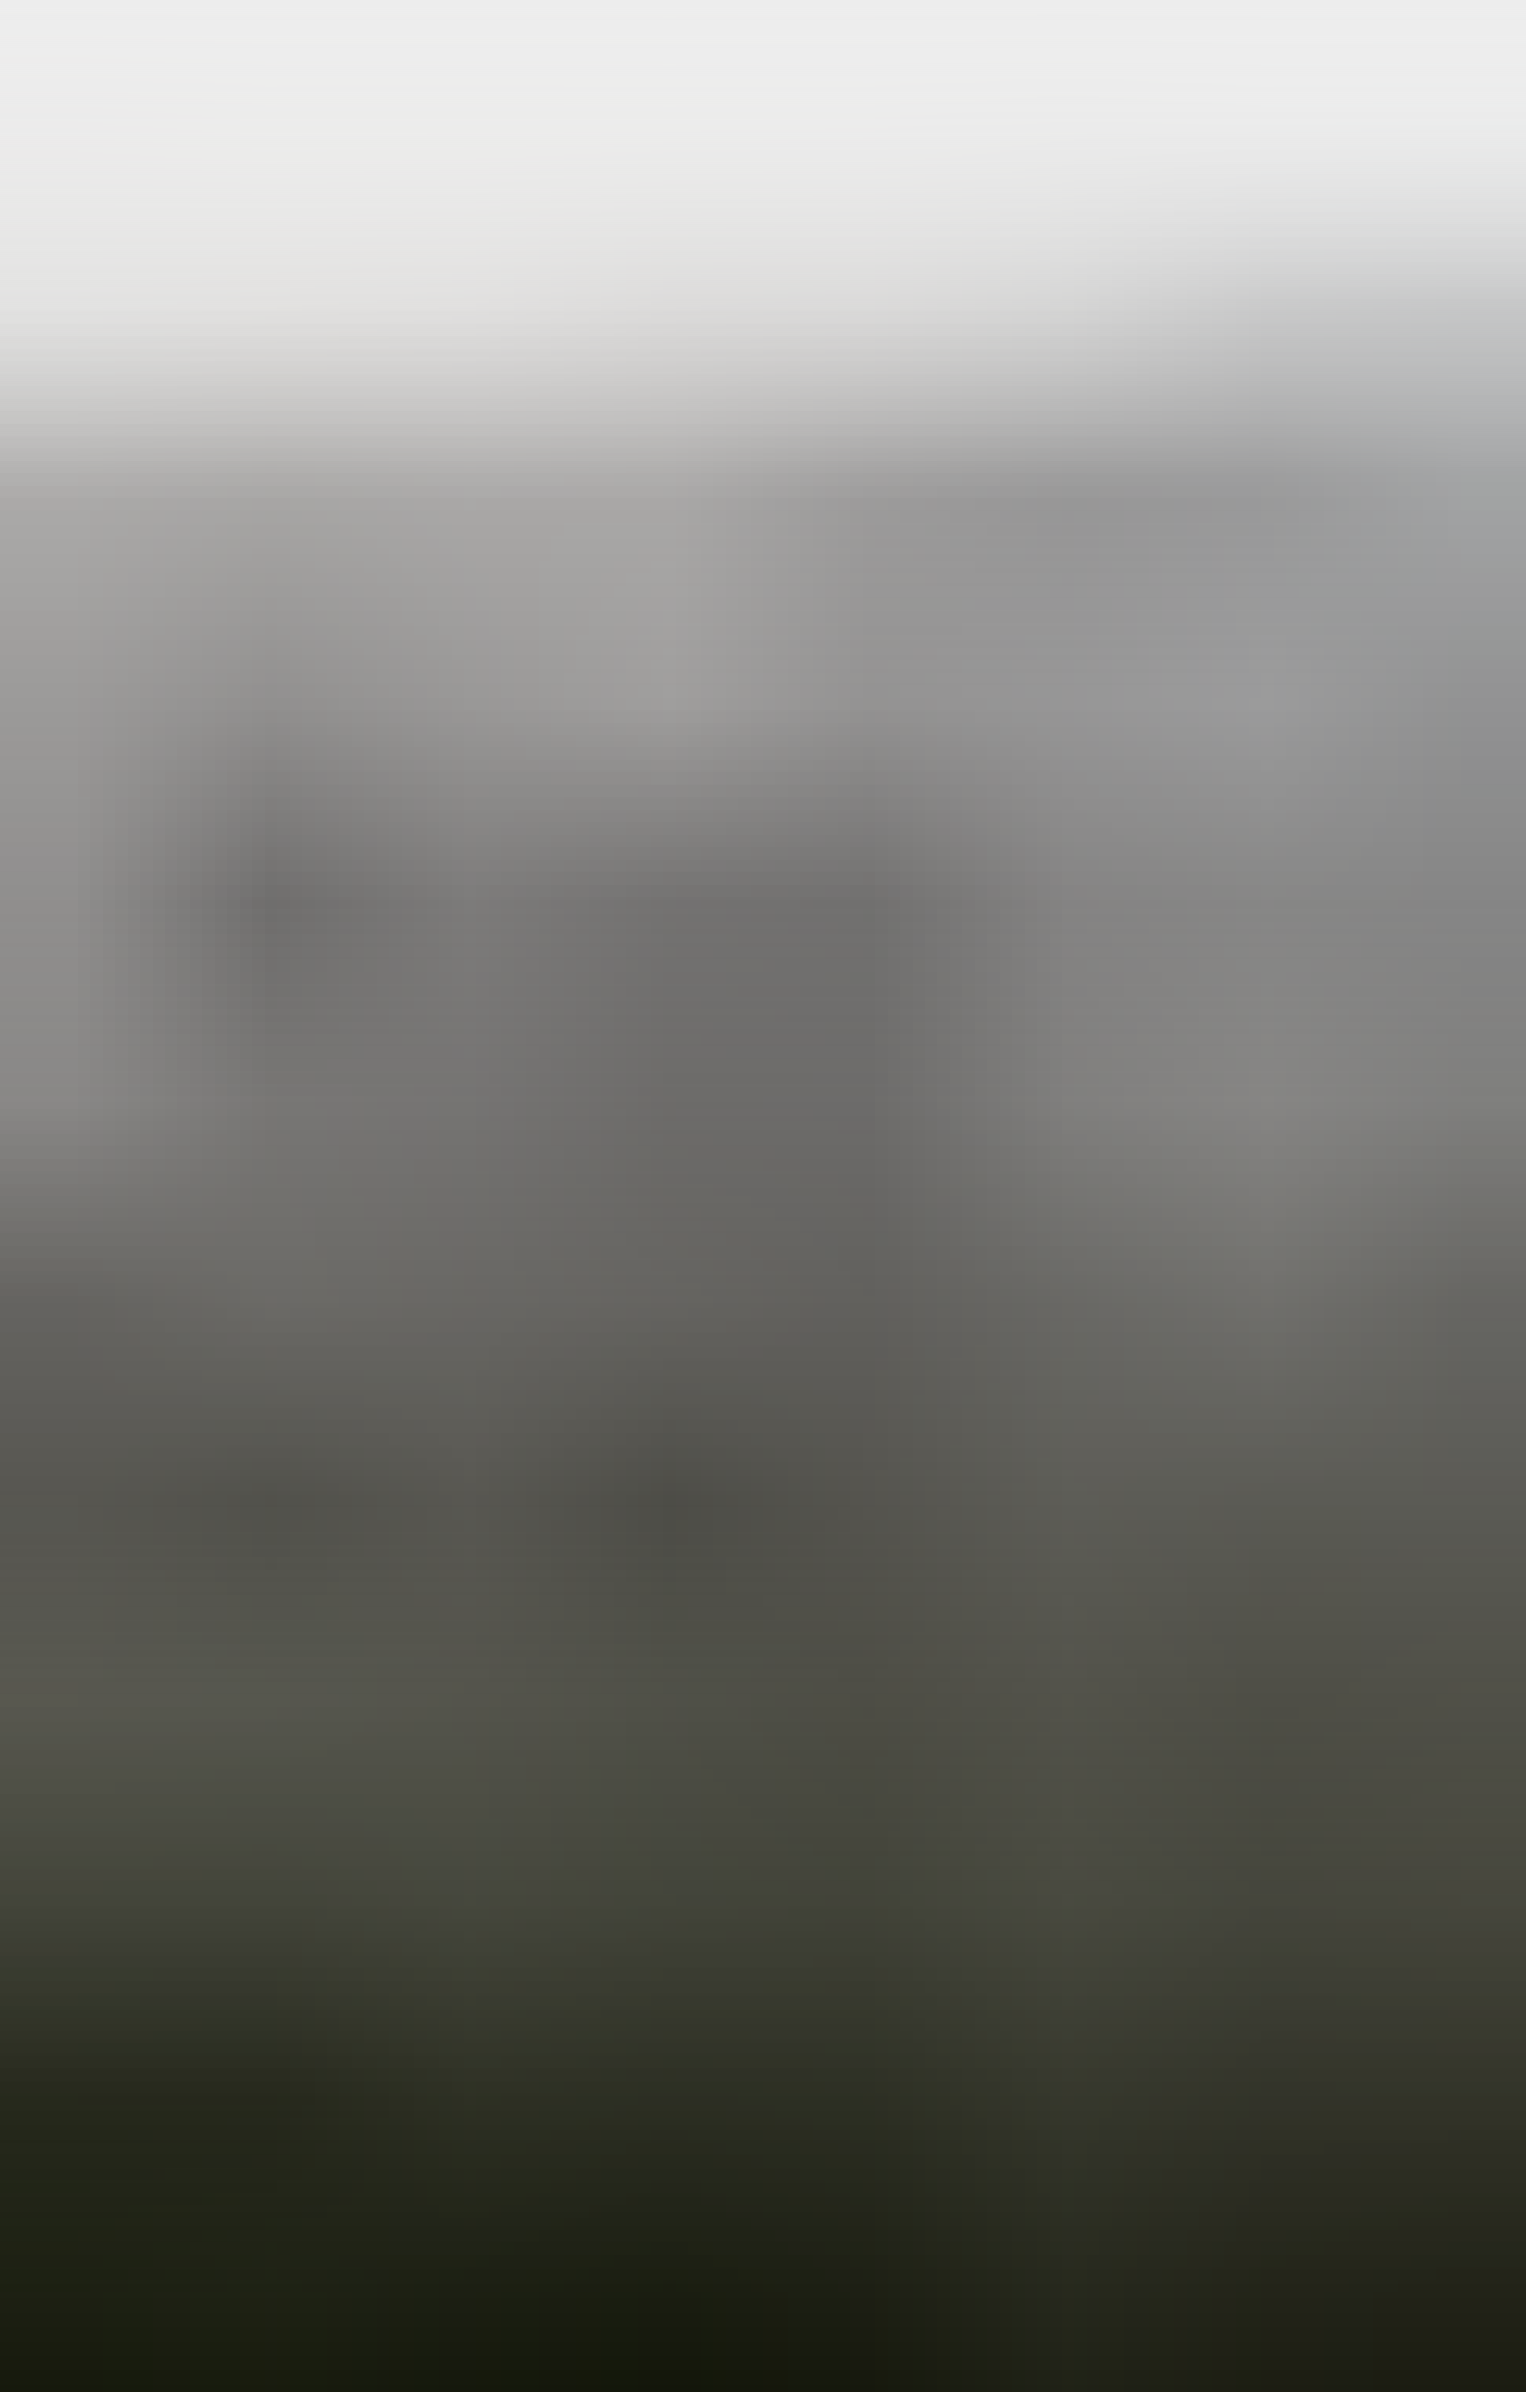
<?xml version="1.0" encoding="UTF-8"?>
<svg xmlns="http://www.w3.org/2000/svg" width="1526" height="2392">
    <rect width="100%" height="100%" fill="#FFFFFF"/>
    <image x="0" y="0" width="1526" height="2392" href="img_01.png"/>
</svg>
